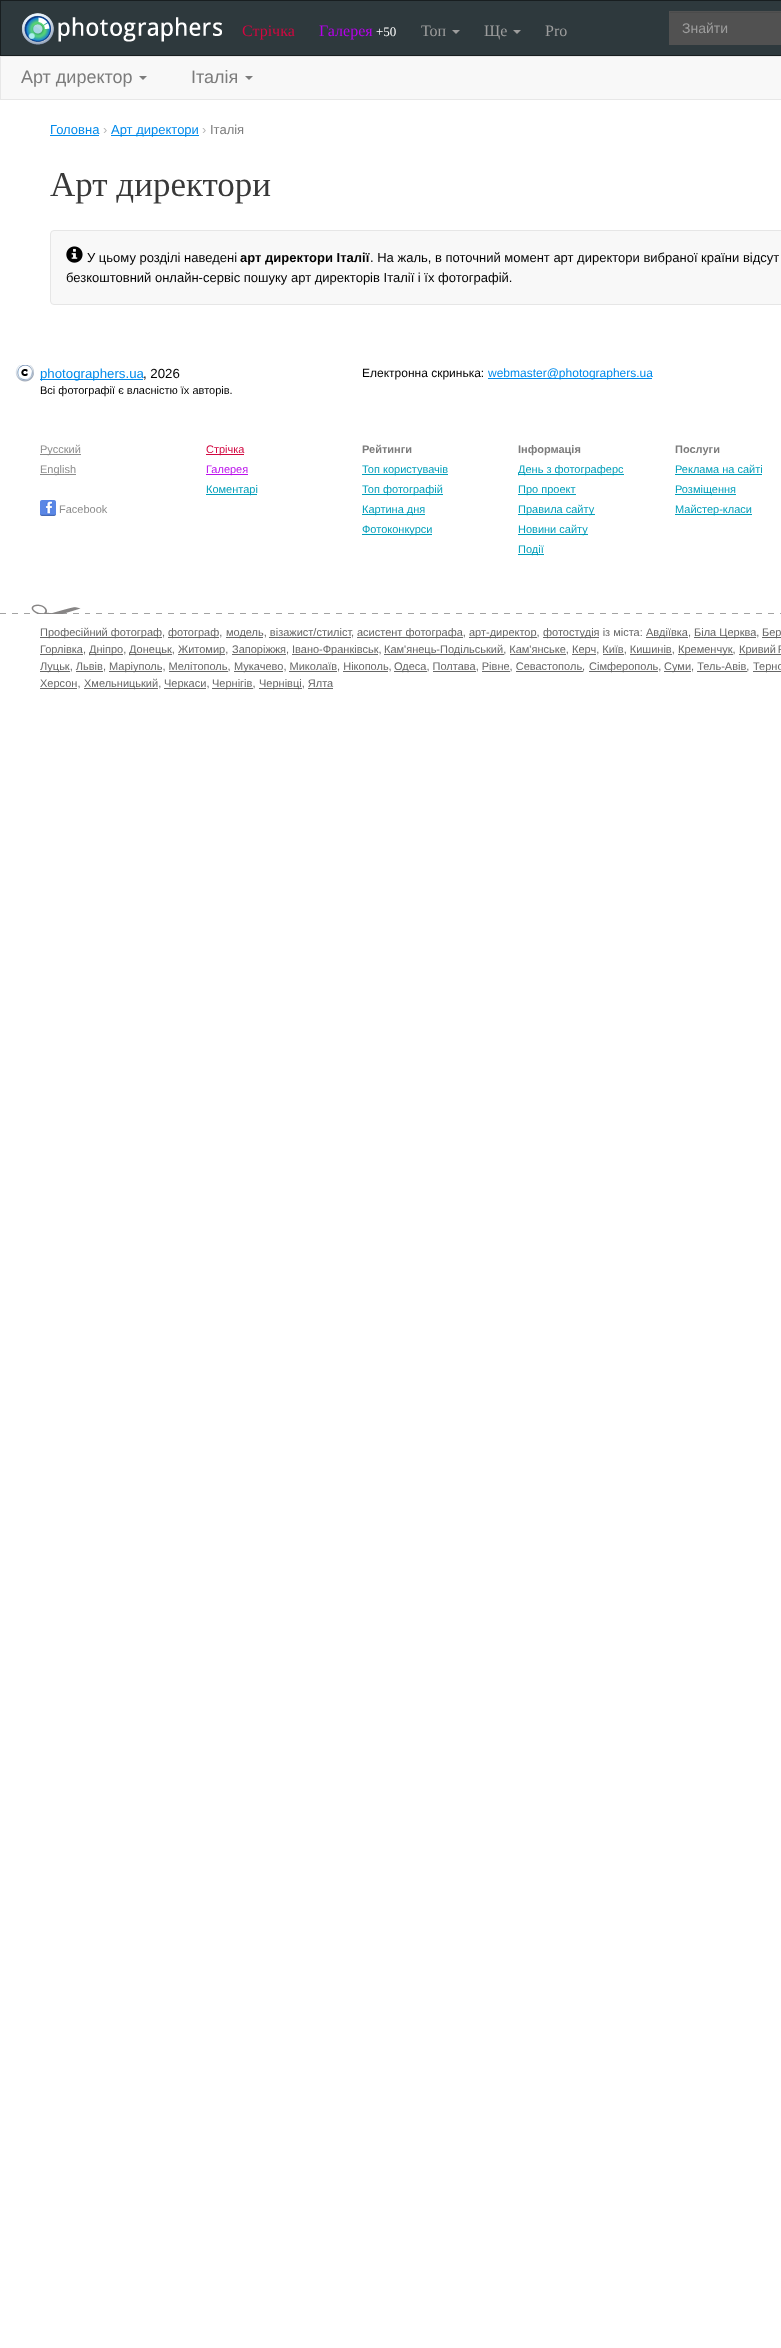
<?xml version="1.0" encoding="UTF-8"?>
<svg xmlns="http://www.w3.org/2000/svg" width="781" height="2348">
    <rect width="100%" height="100%" fill="#FFFFFF"/>
    <rect x="0.5" y="0.5" width="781" height="55" fill="#2E393D" stroke="#181E20"/>
    <image x="21" y="13" width="201" height="32" href="img_01.png"/>
    <text x="242" y="36" font-family="Liberation Serif" font-size="16" fill="#D20740">Стрічка</text>
    <text x="319" y="36" font-family="Liberation Serif" font-size="16" fill="#B600EB">Галерея</text>
    <text x="376" y="36" font-family="Liberation Serif" font-size="13" fill="#FFFFFF">+50</text>
    <text x="421" y="36" font-family="Liberation Serif" font-size="16" fill="#9D9D9D">Топ</text>
    <path d="M 452 30 H 460 L 456 34 Z" fill="#9D9D9D"/>
    <text x="484" y="36" font-family="Liberation Serif" font-size="16" fill="#9D9D9D">Ще</text>
    <path d="M 513 30 H 521 L 517 34 Z" fill="#9D9D9D"/>
    <text x="545" y="36" font-family="Liberation Serif" font-size="16" fill="#9D9D9D">Pro</text>
    <rect x="669" y="11" width="112" height="34" fill="#515151"/>
    <rect x="670" y="12" width="111" height="1" fill="#4B4B4B"/>
    <text x="682" y="33" font-family="Liberation Sans" font-size="14" fill="#9D9D9D">Знайти</text>
    <rect x="0.5" y="56.5" width="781" height="43" fill="#F8F8F8" stroke="#E7E7E7"/>
    <text x="21" y="83" font-family="Liberation Sans" font-size="18" fill="#7C7C7C">Арт директор</text>
    <path d="M 139 76 H 147 L 143 80 Z" fill="#7C7C7C"/>
    <text x="191" y="83" font-family="Liberation Sans" font-size="18" fill="#7C7C7C">Італія</text>
    <path d="M 245 76 H 253 L 249 80 Z" fill="#7C7C7C"/>
    <text x="50" y="134" font-family="Liberation Sans" font-size="13" fill="#008AEB">Головна</text>
    <rect x="50" y="135" width="49" height="1" fill="#008AEB"/>
    <text x="103" y="134" font-family="Liberation Sans" font-size="13" fill="#B4B4B4">›</text>
    <rect x="111" y="135" width="88" height="1" fill="#008AEB"/>
    <text x="111" y="134" font-family="Liberation Sans" font-size="13" fill="#008AEB">Арт директори</text>
    <text x="202" y="134" font-family="Liberation Sans" font-size="13" fill="#B4B4B4">›</text>
    <text x="210" y="134" font-family="Liberation Sans" font-size="13" fill="#7C7C7C">Італія</text>
    <text x="50" y="196" font-family="Liberation Serif" font-size="35" fill="#393939">Арт директори</text>
    <rect x="50.5" y="230.5" width="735" height="74" rx="3.5" fill="#F8F8F8" stroke="#E6E6E6"/>
    <image x="66" y="246" width="17" height="17" href="img_02.png"/>
    <text x="87" y="262" font-family="Liberation Sans" font-size="13" fill="#000000">У цьому розділі наведені</text>
    <text x="240" y="262" font-family="Liberation Sans" font-size="13" font-weight="700" fill="#000000">арт директори Італії</text>
    <text x="370" y="262" font-family="Liberation Sans" font-size="13" fill="#000000">. На жаль, в поточний момент арт директори вибраної країни відсут</text>
    <text x="66" y="282" font-family="Liberation Sans" font-size="13" fill="#000000">безкоштовний онлайн-сервіс пошуку арт директорів Італії і їх фотографій.</text>
    <image x="15" y="365" width="19" height="17" href="img_03.png"/>
    <rect x="40" y="379" width="103" height="1" fill="#008AEB"/>
    <text x="40" y="378" font-family="Liberation Sans" font-size="13.25" fill="#008AEB">photographers.ua</text>
    <text x="143" y="378" font-family="Liberation Sans" font-size="13.25" fill="#000000">, 2026</text>
    <text x="40" y="394" font-family="Liberation Sans" font-size="11" fill="#000000">Всі фотографії є власністю їх авторів.</text>
    <text x="362" y="377" font-family="Liberation Sans" font-size="12" fill="#000000">Електронна скринька:</text>
    <rect x="488" y="378" width="164" height="1" fill="#008AEB"/>
    <text x="488" y="377" font-family="Liberation Sans" font-size="12" fill="#008AEB">webmaster@photographers.ua</text>
    <rect x="40" y="454" width="41" height="1" fill="#8C8C8C"/>
    <text x="40" y="453" font-family="Liberation Sans" font-size="11" fill="#8C8C8C">Русский</text>
    <rect x="40" y="474" width="36" height="1" fill="#8C8C8C"/>
    <text x="40" y="473" font-family="Liberation Sans" font-size="11" fill="#8C8C8C">English</text>
    <image x="40" y="500" width="16" height="16" href="img_04.png"/>
    <text x="59" y="513" font-family="Liberation Sans" font-size="11" fill="#8C8C8C">Facebook</text>
    <rect x="206" y="454" width="38" height="1" fill="#D20740"/>
    <text x="206" y="453" font-family="Liberation Sans" font-size="11" fill="#D20740">Стрічка</text>
    <rect x="206" y="474" width="42" height="1" fill="#BB11EC"/>
    <text x="206" y="473" font-family="Liberation Sans" font-size="11" fill="#BB11EC">Галерея</text>
    <rect x="206" y="494" width="51" height="1" fill="#019EBA"/>
    <text x="206" y="493" font-family="Liberation Sans" font-size="11" fill="#019EBA">Коментарі</text>
    <text x="362" y="453" font-family="Liberation Sans" font-size="11" font-weight="700" fill="#7C7C7C">Рейтинги</text>
    <rect x="362" y="474" width="86" height="1" fill="#019EBA"/>
    <text x="362" y="473" font-family="Liberation Sans" font-size="11" fill="#019EBA">Топ користувачів</text>
    <rect x="362" y="494" width="81" height="1" fill="#019EBA"/>
    <text x="362" y="493" font-family="Liberation Sans" font-size="11" fill="#019EBA">Топ фотографій</text>
    <rect x="362" y="514" width="63" height="1" fill="#019EBA"/>
    <text x="362" y="513" font-family="Liberation Sans" font-size="11" fill="#019EBA">Картина дня</text>
    <rect x="362" y="534" width="70" height="1" fill="#019EBA"/>
    <text x="362" y="533" font-family="Liberation Sans" font-size="11" fill="#019EBA">Фотоконкурси</text>
    <text x="518" y="453" font-family="Liberation Sans" font-size="11" font-weight="700" fill="#7C7C7C">Інформація</text>
    <rect x="518" y="474" width="106" height="1" fill="#019EBA"/>
    <text x="518" y="473" font-family="Liberation Sans" font-size="11" fill="#019EBA">День з фотограферс</text>
    <rect x="518" y="494" width="58" height="1" fill="#019EBA"/>
    <text x="518" y="493" font-family="Liberation Sans" font-size="11" fill="#019EBA">Про проект</text>
    <rect x="518" y="514" width="77" height="1" fill="#019EBA"/>
    <text x="518" y="513" font-family="Liberation Sans" font-size="11" fill="#019EBA">Правила сайту</text>
    <rect x="518" y="534" width="70" height="1" fill="#019EBA"/>
    <text x="518" y="533" font-family="Liberation Sans" font-size="11" fill="#019EBA">Новини сайту</text>
    <rect x="518" y="554" width="26" height="1" fill="#019EBA"/>
    <text x="518" y="553" font-family="Liberation Sans" font-size="11" fill="#019EBA">Події</text>
    <text x="675" y="453" font-family="Liberation Sans" font-size="11" font-weight="700" fill="#7C7C7C">Послуги</text>
    <text x="675" y="473" font-family="Liberation Sans" font-size="11" fill="#019EBA">Реклама на сайті</text>
    <rect x="675" y="474" width="87" height="1" fill="#019EBA"/>
    <rect x="675" y="494" width="61" height="1" fill="#019EBA"/>
    <text x="675" y="493" font-family="Liberation Sans" font-size="11" fill="#019EBA">Розміщення</text>
    <rect x="675" y="514" width="77" height="1" fill="#019EBA"/>
    <text x="675" y="513" font-family="Liberation Sans" font-size="11" fill="#019EBA">Майстер-класи</text>
    <image x="0" y="613" width="781" height="1" href="img_05.png"/>
    <image x="31" y="604" width="54" height="10" href="img_06.png"/>
    <rect x="40" y="637" width="122" height="1" fill="#666666"/>
    <text x="40" y="636" font-family="Liberation Sans" font-size="11" fill="#666666">Професійний фотограф,</text>
    <rect x="168" y="637" width="51" height="1" fill="#666666"/>
    <text x="168" y="636" font-family="Liberation Sans" font-size="11" fill="#666666">фотограф,</text>
    <rect x="226" y="637" width="37" height="1" fill="#666666"/>
    <text x="226" y="636" font-family="Liberation Sans" font-size="11" fill="#666666">модель, візажист/стиліст</text>
    <rect x="357" y="637" width="106" height="1" fill="#666666"/>
    <text x="357" y="636" font-family="Liberation Sans" font-size="11" fill="#666666">асистент фотографа,</text>
    <rect x="469" y="637" width="68" height="1" fill="#666666"/>
    <text x="469" y="636" font-family="Liberation Sans" font-size="11" fill="#666666">арт-директор,</text>
    <rect x="543" y="637" width="56" height="1" fill="#666666"/>
    <text x="543" y="636" font-family="Liberation Sans" font-size="11" fill="#666666">фотостудія із міста:</text>
    <rect x="646" y="637" width="42" height="1" fill="#666666"/>
    <text x="646" y="636" font-family="Liberation Sans" font-size="11" fill="#666666">Авдіївка,</text>
    <rect x="694" y="637" width="62" height="1" fill="#666666"/>
    <text x="694" y="636" font-family="Liberation Sans" font-size="11" fill="#666666">Біла Церква,</text>
    <rect x="762" y="637" width="19" height="1" fill="#666666"/>
    <text x="762" y="636" font-family="Liberation Sans" font-size="11" fill="#666666">Бер</text>
    <rect x="269" y="637" width="82" height="1" fill="#666666"/>
    <text x="351" y="636" font-family="Liberation Sans" font-size="11" fill="#666666">,</text>
    <rect x="40" y="654" width="43" height="1" fill="#666666"/>
    <text x="40" y="653" font-family="Liberation Sans" font-size="11" fill="#666666">Горлівка,</text>
    <rect x="89" y="654" width="34" height="1" fill="#666666"/>
    <text x="89" y="653" font-family="Liberation Sans" font-size="11" fill="#666666">Дніпро,</text>
    <rect x="129" y="654" width="43" height="1" fill="#666666"/>
    <text x="129" y="653" font-family="Liberation Sans" font-size="11" fill="#666666">Донецьк,</text>
    <rect x="178" y="654" width="47" height="1" fill="#666666"/>
    <text x="178" y="653" font-family="Liberation Sans" font-size="11" fill="#666666">Житомир,</text>
    <rect x="232" y="654" width="54" height="1" fill="#666666"/>
    <text x="232" y="653" font-family="Liberation Sans" font-size="11" fill="#666666">Запоріжжя,</text>
    <rect x="292" y="654" width="86" height="1" fill="#666666"/>
    <text x="292" y="653" font-family="Liberation Sans" font-size="11" fill="#666666">Івано-Франківськ,</text>
    <rect x="384" y="654" width="120" height="1" fill="#666666"/>
    <text x="384" y="653" font-family="Liberation Sans" font-size="11" fill="#666666">Кам'янець-Подільський, Кам'янське,</text>
    <rect x="572" y="654" width="24" height="1" fill="#666666"/>
    <text x="572" y="653" font-family="Liberation Sans" font-size="11" fill="#666666">Керч, Київ, Кишинів,</text>
    <rect x="678" y="654" width="55" height="1" fill="#666666"/>
    <text x="678" y="653" font-family="Liberation Sans" font-size="11" fill="#666666">Кременчук,</text>
    <rect x="739" y="654" width="42" height="1" fill="#666666"/>
    <text x="739" y="653" word-spacing="-1" font-family="Liberation Sans" font-size="11" fill="#666666">Кривий Р</text>
    <rect x="510" y="654" width="56" height="1" fill="#666666"/>
    <rect x="603" y="654" width="21" height="1" fill="#666666"/>
    <rect x="630" y="654" width="42" height="1" fill="#666666"/>
    <rect x="40" y="671" width="30" height="1" fill="#666666"/>
    <text x="40" y="670" font-family="Liberation Sans" font-size="11" fill="#666666">Луцьк, Львів,</text>
    <rect x="109" y="671" width="53" height="1" fill="#666666"/>
    <text x="109" y="670" font-family="Liberation Sans" font-size="11" fill="#666666">Маріуполь, Мелітополь,</text>
    <rect x="234" y="671" width="49" height="1" fill="#666666"/>
    <text x="234" y="670" font-family="Liberation Sans" font-size="11" fill="#666666">Мукачево, Миколаїв, Нікополь,</text>
    <rect x="394" y="671" width="33" height="1" fill="#666666"/>
    <text x="394" y="670" font-family="Liberation Sans" font-size="11" fill="#666666">Одеса, Полтава, Рівне, Севастополь,</text>
    <rect x="589" y="671" width="69" height="1" fill="#666666"/>
    <text x="589" y="670" font-family="Liberation Sans" font-size="11" fill="#666666">Сімферополь,</text>
    <rect x="664" y="671" width="27" height="1" fill="#666666"/>
    <text x="664" y="670" font-family="Liberation Sans" font-size="11" fill="#666666">Суми, Тель-Авів,</text>
    <rect x="753" y="671" width="28" height="1" fill="#666666"/>
    <text x="753" y="670" font-family="Liberation Sans" font-size="11" fill="#666666">Терно</text>
    <rect x="76" y="671" width="27" height="1" fill="#666666"/>
    <rect x="169" y="671" width="59" height="1" fill="#666666"/>
    <rect x="289" y="671" width="48" height="1" fill="#666666"/>
    <rect x="343" y="671" width="45" height="1" fill="#666666"/>
    <rect x="433" y="671" width="43" height="1" fill="#666666"/>
    <rect x="482" y="671" width="28" height="1" fill="#666666"/>
    <rect x="516" y="671" width="67" height="1" fill="#666666"/>
    <rect x="697" y="671" width="50" height="1" fill="#666666"/>
    <rect x="40" y="688" width="37" height="1" fill="#666666"/>
    <text x="40" y="687" font-family="Liberation Sans" font-size="11" fill="#666666">Херсон,</text>
    <rect x="84" y="688" width="74" height="1" fill="#666666"/>
    <text x="84" y="687" font-family="Liberation Sans" font-size="11" fill="#666666">Хмельницький,</text>
    <rect x="164" y="688" width="42" height="1" fill="#666666"/>
    <text x="164" y="687" font-family="Liberation Sans" font-size="11" fill="#666666">Черкаси,</text>
    <rect x="212" y="688" width="41" height="1" fill="#666666"/>
    <text x="212" y="687" font-family="Liberation Sans" font-size="11" fill="#666666">Чернігів,</text>
    <rect x="259" y="688" width="43" height="1" fill="#666666"/>
    <text x="259" y="687" font-family="Liberation Sans" font-size="11" fill="#666666">Чернівці, Ялта</text>
    <rect x="308" y="688" width="25" height="1" fill="#666666"/>
</svg>
